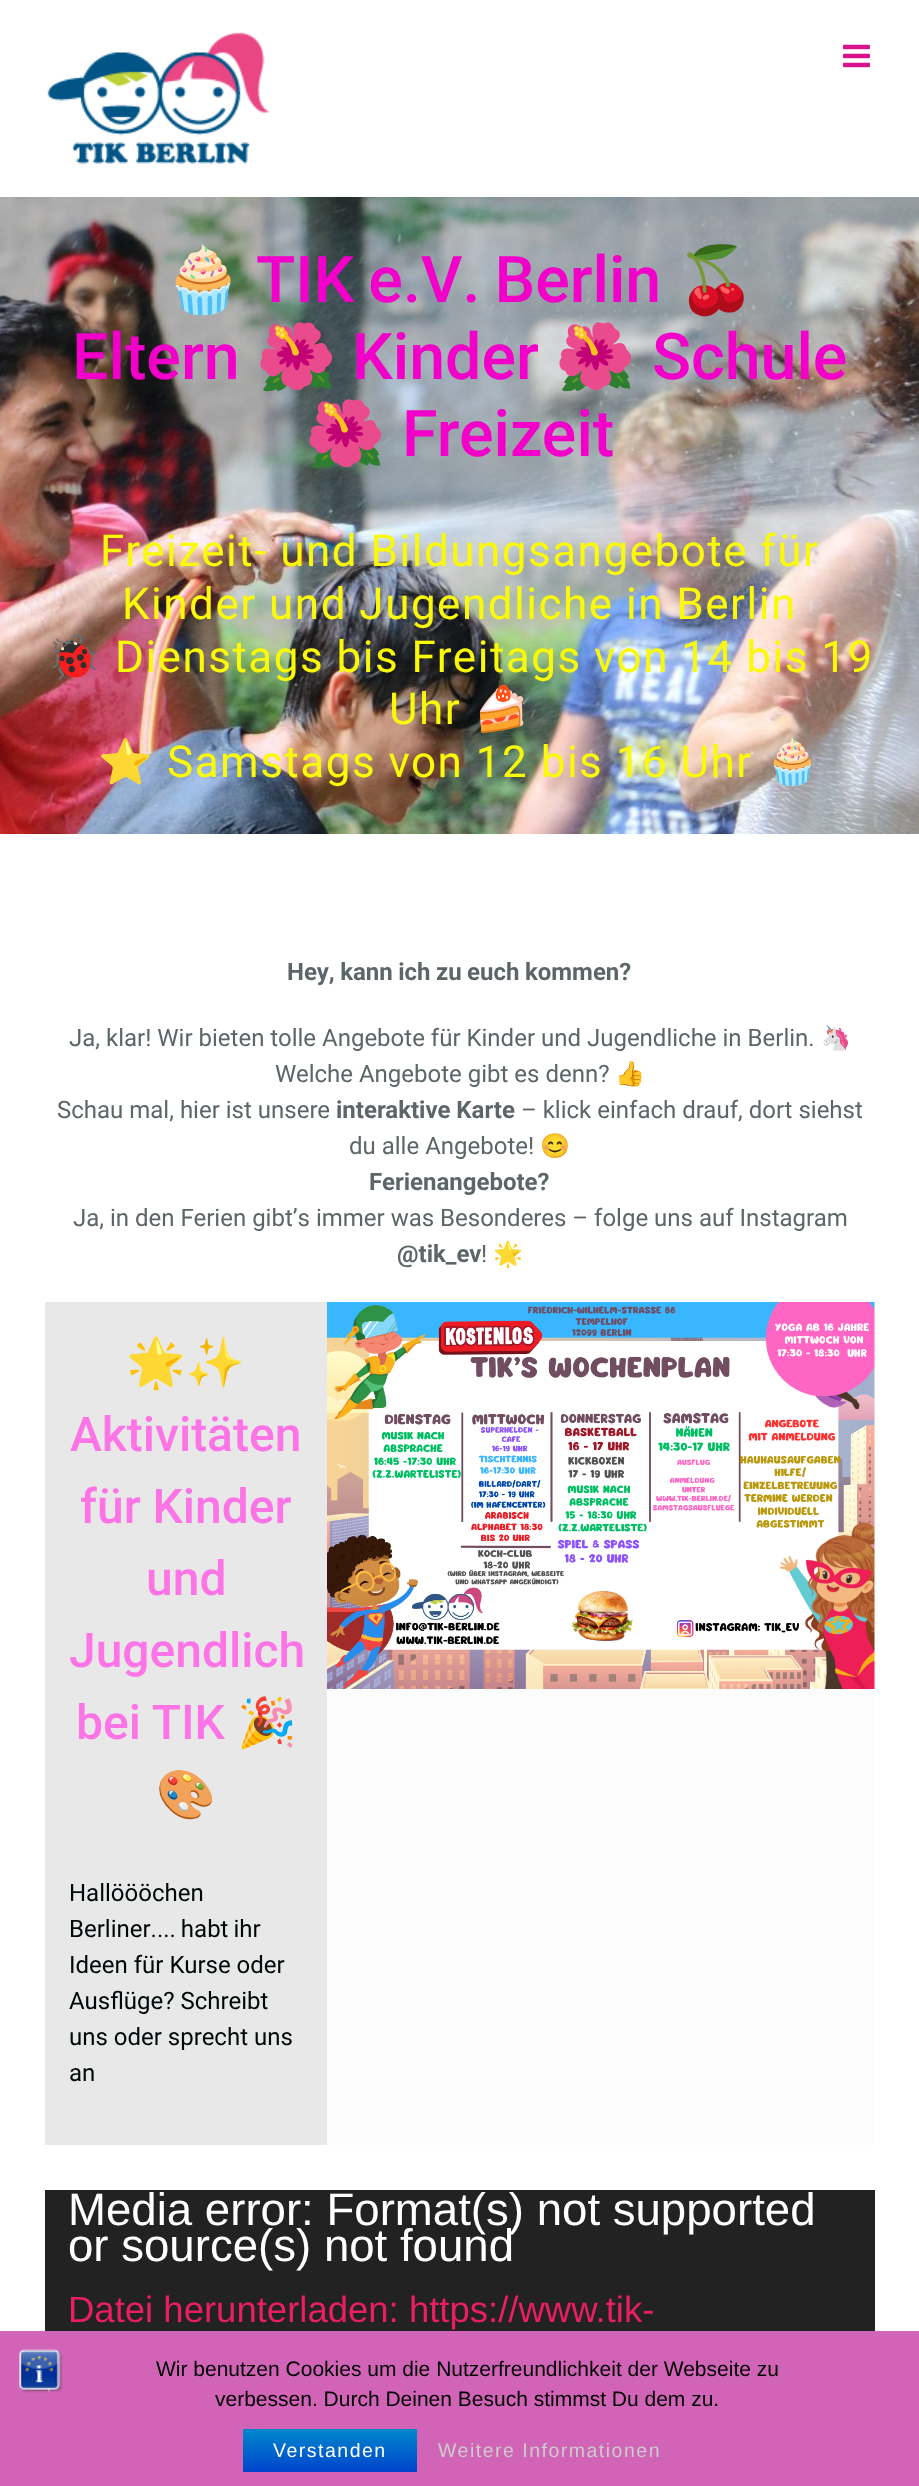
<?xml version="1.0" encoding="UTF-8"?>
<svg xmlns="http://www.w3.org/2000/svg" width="919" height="2486">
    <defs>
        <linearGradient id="g1" gradientUnits="userSpaceOnUse" x1="330" y1="2429" x2="330" y2="2472"><stop offset="0" stop-color="#0088CC"/><stop offset="1" stop-color="#0044CC"/></linearGradient>
    </defs>
    <rect width="100%" height="100%" fill="#FFFFFF"/>
    <image x="47" y="32" width="222" height="132" href="img_01.png"/>
    <image x="843" y="44" width="27" height="24" href="img_02.png"/>
    <image x="0" y="197" width="919" height="637" href="img_03.png"/>
    <text x="163" y="302" font-family="Noto Color Emoji" font-size="64.5" fill="#F200C9">🧁</text>
    <text x="256" y="302" word-spacing="-2" font-family="Roboto" font-size="64.5" font-weight="500" fill="#F200C9">TIK e.V. Berlin</text>
    <text x="676" y="302" font-family="Noto Color Emoji" font-size="64.5" fill="#F200C9">🍒</text>
    <text x="72" y="379" font-family="Roboto" font-size="64.5" font-weight="500" fill="#F200C9">Eltern</text>
    <text x="256" y="379" font-family="Noto Color Emoji" font-size="64.5" fill="#F200C9">🌺</text>
    <text x="352" y="379" font-family="Roboto" font-size="64.5" font-weight="500" fill="#F200C9">Kinder</text>
    <text x="555" y="379" font-family="Noto Color Emoji" font-size="64.5" fill="#F200C9">🌺</text>
    <text x="652" y="379" font-family="Roboto" font-size="64.5" font-weight="500" fill="#F200C9">Schule</text>
    <text x="305" y="456" font-family="Noto Color Emoji" font-size="64.5" fill="#F200C9">🌺</text>
    <text x="402" y="456" font-family="Roboto" font-size="64.5" font-weight="500" fill="#F200C9">Freizeit</text>
    <text x="100" y="566" font-family="Roboto" font-size="44" letter-spacing="1.5" fill="#F9F909">Freizeit- und Bildungsangebote für</text>
    <text x="122" y="619" font-family="Roboto" font-size="44" letter-spacing="1.5" fill="#F9F909">Kinder und Jugendliche in Berlin</text>
    <text x="46" y="672" font-family="'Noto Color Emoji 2'" font-size="44" letter-spacing="1.5" fill="#F9F909">🐞</text>
    <text x="115" y="672" font-family="Roboto" font-size="44" letter-spacing="1.5" fill="#F9F909">Dienstags bis Freitags von 14 bis 19</text>
    <text x="389" y="724" font-family="Roboto" font-size="44" letter-spacing="1.5" fill="#F9F909">Uhr</text>
    <text x="474" y="724" font-family="'Noto Color Emoji 2'" font-size="44" letter-spacing="1.5" fill="#F9F909">🍰</text>
    <text x="98" y="777" font-family="'Noto Color Emoji 2'" font-size="44" letter-spacing="1.5" fill="#F9F909">⭐</text>
    <text x="167" y="777" font-family="Roboto" font-size="44" letter-spacing="1.5" fill="#F9F909">Samstags von 12 bis 16 Uhr</text>
    <text x="765" y="777" font-family="'Noto Color Emoji 2'" font-size="44" letter-spacing="1.5" fill="#F9F909">🧁</text>
    <text x="287" y="980" word-spacing="-0.5" font-family="Roboto" font-size="24" font-weight="700" fill="#5C6668">Hey, kann ich zu euch kommen?</text>
    <text x="69" y="1046" font-family="Roboto" font-size="24" fill="#5C6668">Ja, klar! Wir bieten tolle Angebote für Kinder und Jugendliche in Berlin.</text>
    <text x="821" y="1046" font-family="'Noto Color Emoji 2'" font-size="24" fill="#5C6668">🦄</text>
    <text x="275" y="1082" font-family="Roboto" font-size="24" fill="#5C6668">Welche Angebote gibt es denn?</text>
    <text x="615" y="1082" font-family="'Noto Color Emoji 2'" font-size="24" fill="#5C6668">👍</text>
    <text x="57" y="1118" font-family="Roboto" font-size="24" fill="#5C6668">Schau mal, hier ist unsere</text>
    <text x="336" y="1118" font-family="Roboto" font-size="24" font-weight="700" fill="#5C6668">interaktive Karte</text>
    <text x="521" y="1118" font-family="Roboto" font-size="24" fill="#5C6668">– klick einfach drauf, dort siehst</text>
    <text x="349" y="1154" font-family="Roboto" font-size="24" fill="#5C6668">du alle Angebote!</text>
    <text x="540" y="1154" font-family="'Noto Color Emoji 2'" font-size="24" fill="#5C6668">😊</text>
    <text x="369" y="1190" font-family="Roboto" font-size="24" font-weight="700" fill="#5C6668">Ferienangebote?</text>
    <text x="73" y="1226" font-family="Roboto" font-size="24" fill="#5C6668">Ja, in den Ferien gibt’s immer was Besonderes – folge uns auf Instagram</text>
    <text x="397" y="1262" font-family="Roboto" font-size="24" font-weight="700" fill="#5C6668">@tik_ev</text>
    <text x="481" y="1262" font-family="Roboto" font-size="24" fill="#5C6668">!</text>
    <text x="493" y="1262" font-family="'Noto Color Emoji 2'" font-size="24" fill="#5C6668">🌟</text>
    <rect x="45" y="1302" width="282" height="843" fill="#E8E8E8"/>
    <text x="126" y="1379" font-family="'Noto Color Emoji 2'" font-size="48" fill="#FC74E5">🌟✨</text>
    <text x="70" y="1451" font-family="Roboto" font-size="48" font-weight="500" fill="#FC74E5">Aktivitäten</text>
    <text x="80" y="1523" font-family="Roboto" font-size="48" font-weight="500" fill="#FC74E5">für Kinder</text>
    <text x="146" y="1595" font-family="Roboto" font-size="48" font-weight="500" fill="#FC74E5">und</text>
    <text x="69" y="1667" font-family="Roboto" font-size="48" font-weight="500" fill="#FC74E5">Jugendlich</text>
    <text x="76" y="1739" font-family="Roboto" font-size="48" font-weight="500" fill="#FC74E5">bei TIK</text>
    <text x="237" y="1739" font-family="'Noto Color Emoji 2'" font-size="48" fill="#FC74E5">🎉</text>
    <text x="156" y="1811" font-family="'Noto Color Emoji 2'" font-size="48" fill="#FC74E5">🎨</text>
    <text font-family="Roboto" font-size="24" fill="#00090A">
        <tspan x="69" y="1901">Hallöööchen</tspan>
        <tspan x="69" y="1937" word-spacing="-1">Berliner.... habt ihr</tspan>
        <tspan x="69" y="1973">Ideen für Kurse oder</tspan>
        <tspan x="69" y="2009">Ausflüge? Schreibt</tspan>
        <tspan x="69" y="2045">uns oder sprecht uns</tspan>
        <tspan x="69" y="2081">an</tspan>
    </text>
    <rect x="327" y="1302" width="548" height="843" fill="#FCFCFC"/>
    <image x="327" y="1302" width="548" height="387" href="img_04.png"/>
    <rect x="45" y="2190" width="830" height="141" fill="#222222"/>
    <text font-family="Liberation Sans" font-size="45.6" fill="#FFFFFF">
        <tspan x="68" y="2225">Media error: Format(s) not supported</tspan>
        <tspan x="68" y="2261">or source(s) not found</tspan>
    </text>
    <text x="68" y="2322" font-family="Liberation Sans" font-size="36.5" fill="#E91E63">Datei herunterladen: https://www.tik-</text>
    <rect x="0" y="2331" width="919" height="155" fill="#D164B7"/>
    <image x="19" y="2348" width="44" height="45" href="img_05.png"/>
    <text x="156" y="2376" font-family="Liberation Sans" font-size="21" fill="#000000">Wir benutzen Cookies um die Nutzerfreundlichkeit der Webseite zu</text>
    <text x="215" y="2406" font-family="Liberation Sans" font-size="21" fill="#000000">verbessen. Durch Deinen Besuch stimmst Du dem zu.</text>
    <rect x="243" y="2429" width="174" height="43" fill="url(#g1)"/>
    <text x="273" y="2457" font-family="Liberation Sans" font-size="19.5" letter-spacing="1.5" fill="#FFFFFF">Verstanden</text>
    <text x="438" y="2457" font-family="Liberation Sans" font-size="19.5" letter-spacing="1.5" fill="#CCCCCC">Weitere Informationen</text>
</svg>
